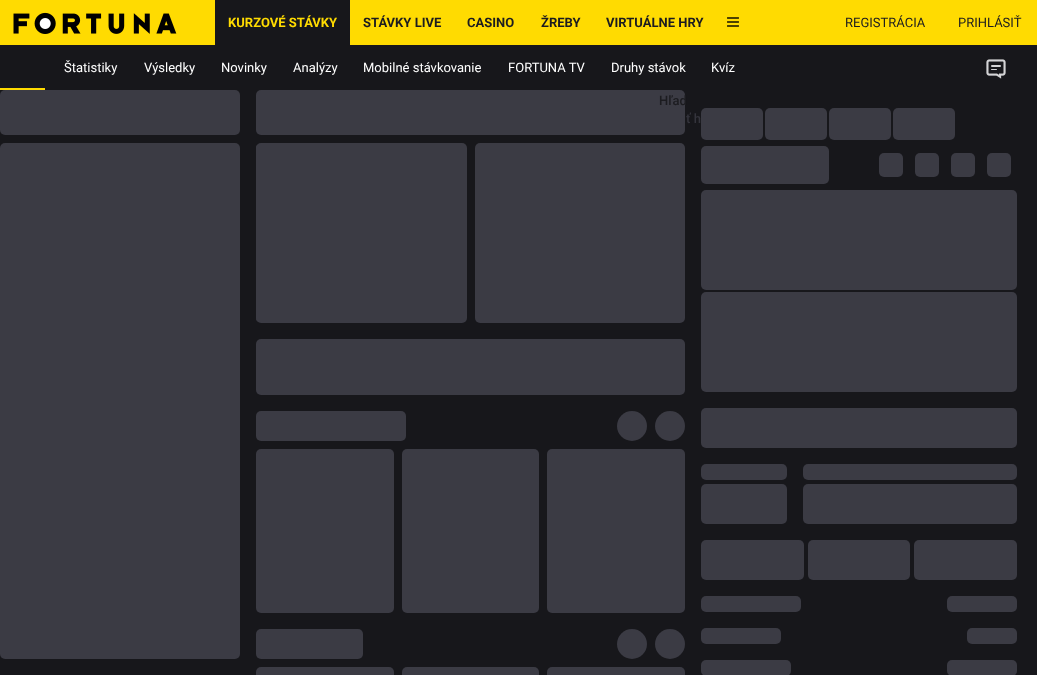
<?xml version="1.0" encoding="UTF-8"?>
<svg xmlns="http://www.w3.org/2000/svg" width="1037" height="675">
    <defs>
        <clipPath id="clip1"><rect x="256" y="143" width="211" height="180" rx="5"/></clipPath>
        <linearGradient id="g1" gradientUnits="userSpaceOnUse" x1="46" y1="233" x2="257" y2="233"><stop offset="0" stop-color="#3B3B44"/><stop offset="0.45" stop-color="#2E2E38"/><stop offset="0.5" stop-color="#2E2E38"/><stop offset="1" stop-color="#3B3B44"/></linearGradient>
    </defs>
    <rect width="100%" height="100%" fill="#17171B"/>
    <rect x="0" y="0" width="1037" height="45" fill="#FFDB01"/>
    <image x="13" y="12" width="164" height="22" href="img_01.png"/>
    <rect x="215" y="0" width="135" height="45" fill="#17171B"/>
    <text x="228" y="27" font-family="Roboto" font-size="13" font-weight="700" fill="#FFDB01">KURZOVÉ STÁVKY</text>
    <text x="363" y="27" font-family="Roboto" font-size="13" font-weight="700" fill="#1C1C20">STÁVKY LIVE</text>
    <text x="467" y="27" font-family="Roboto" font-size="13" font-weight="700" fill="#1C1C20">CASINO</text>
    <text x="541" y="27" font-family="Roboto" font-size="13" font-weight="700" fill="#1C1C20">ŽREBY</text>
    <text x="606" y="27" font-family="Roboto" font-size="13" font-weight="700" fill="#1C1C20">VIRTUÁLNE HRY</text>
    <image x="727" y="17" width="12" height="10" href="img_02.png"/>
    <text x="845" y="27" font-family="Roboto" font-size="13" fill="#1C1C20">REGISTRÁCIA</text>
    <text x="958" y="27" font-family="Roboto" font-size="13" fill="#1C1C20">PRIHLÁSIŤ</text>
    <text x="64" y="72" font-family="Roboto" font-size="13" fill="#FFFFFF">Štatistiky</text>
    <text x="144" y="72" font-family="Roboto" font-size="13" fill="#FFFFFF">Výsledky</text>
    <text x="221" y="72" font-family="Roboto" font-size="13" fill="#FFFFFF">Novinky</text>
    <text x="293" y="72" font-family="Roboto" font-size="13" fill="#FFFFFF">Analýzy</text>
    <text x="363" y="72" font-family="Roboto" font-size="13" fill="#FFFFFF">Mobilné stávkovanie</text>
    <text x="508" y="72" font-family="Roboto" font-size="13" fill="#FFFFFF">FORTUNA TV</text>
    <text x="611" y="72" font-family="Roboto" font-size="13" fill="#FFFFFF">Druhy stávok</text>
    <text x="711" y="72" font-family="Roboto" font-size="13" fill="#FFFFFF">Kvíz</text>
    <image x="986" y="59" width="20" height="20" href="img_03.png"/>
    <rect x="0" y="88" width="45" height="2" fill="#FFDB01"/>
    <rect x="256" y="90" width="429" height="45" rx="5" fill="#3B3B44"/>
    <text x="659" y="105" font-family="Roboto" font-size="13" font-weight="500" fill="#1C1C20">Hľad</text>
    <text x="686" y="123" font-family="Roboto" font-size="13" font-weight="500" fill="#34343C">ť h</text>
    <rect x="0" y="90" width="240" height="45" rx="5" fill="#3B3B44"/>
    <rect x="0" y="143" width="240" height="516" rx="5" fill="#3B3B44"/>
    <rect x="256" y="143" width="211" height="180" rx="5" fill="#3B3B44"/>
    <g clip-path="url(#clip1)">
        <rect x="256" y="143" width="1" height="180" fill="url(#g1)"/>
    </g>
    <rect x="475" y="143" width="210" height="180" rx="5" fill="#3B3B44"/>
    <rect x="256" y="339" width="429" height="56" rx="5" fill="#3B3B44"/>
    <rect x="256" y="411" width="150" height="30" rx="5" fill="#3B3B44"/>
    <circle cx="632" cy="426" r="15" fill="#3B3B44"/>
    <circle cx="670" cy="426" r="15" fill="#3B3B44"/>
    <rect x="256" y="449" width="138" height="164" rx="5" fill="#3B3B44"/>
    <rect x="402" y="449" width="137" height="164" rx="5" fill="#3B3B44"/>
    <rect x="547" y="449" width="138" height="164" rx="5" fill="#3B3B44"/>
    <rect x="256" y="629" width="107" height="30" rx="5" fill="#3B3B44"/>
    <circle cx="632" cy="644" r="15" fill="#3B3B44"/>
    <circle cx="670" cy="644" r="15" fill="#3B3B44"/>
    <rect x="256" y="667" width="138" height="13" rx="5" fill="#3B3B44"/>
    <rect x="402" y="667" width="137" height="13" rx="5" fill="#3B3B44"/>
    <rect x="547" y="667" width="138" height="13" rx="5" fill="#3B3B44"/>
    <rect x="701" y="108" width="62" height="32" rx="5" fill="#3B3B44"/>
    <rect x="765" y="108" width="62" height="32" rx="5" fill="#3B3B44"/>
    <rect x="829" y="108" width="62" height="32" rx="5" fill="#3B3B44"/>
    <rect x="893" y="108" width="62" height="32" rx="5" fill="#3B3B44"/>
    <rect x="701" y="146" width="128" height="38" rx="5" fill="#3B3B44"/>
    <rect x="879" y="153" width="24" height="24" rx="5" fill="#3B3B44"/>
    <rect x="915" y="153" width="24" height="24" rx="5" fill="#3B3B44"/>
    <rect x="951" y="153" width="24" height="24" rx="5" fill="#3B3B44"/>
    <rect x="987" y="153" width="24" height="24" rx="5" fill="#3B3B44"/>
    <rect x="701" y="190" width="316" height="100" rx="5" fill="#3B3B44"/>
    <rect x="701" y="292" width="316" height="100" rx="5" fill="#3B3B44"/>
    <rect x="701" y="408" width="316" height="40" rx="5" fill="#3B3B44"/>
    <rect x="701" y="464" width="86" height="16" rx="5" fill="#3B3B44"/>
    <rect x="803" y="464" width="214" height="16" rx="5" fill="#3B3B44"/>
    <rect x="701" y="484" width="86" height="40" rx="5" fill="#3B3B44"/>
    <rect x="803" y="484" width="214" height="40" rx="5" fill="#3B3B44"/>
    <rect x="701" y="540" width="103" height="40" rx="5" fill="#3B3B44"/>
    <rect x="808" y="540" width="102" height="40" rx="5" fill="#3B3B44"/>
    <rect x="914" y="540" width="103" height="40" rx="5" fill="#3B3B44"/>
    <rect x="701" y="596" width="100" height="16" rx="5" fill="#3B3B44"/>
    <rect x="947" y="596" width="70" height="16" rx="5" fill="#3B3B44"/>
    <rect x="701" y="628" width="80" height="16" rx="5" fill="#3B3B44"/>
    <rect x="967" y="628" width="50" height="16" rx="5" fill="#3B3B44"/>
    <rect x="701" y="660" width="90" height="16" rx="5" fill="#3B3B44"/>
    <rect x="947" y="660" width="70" height="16" rx="5" fill="#3B3B44"/>
</svg>
